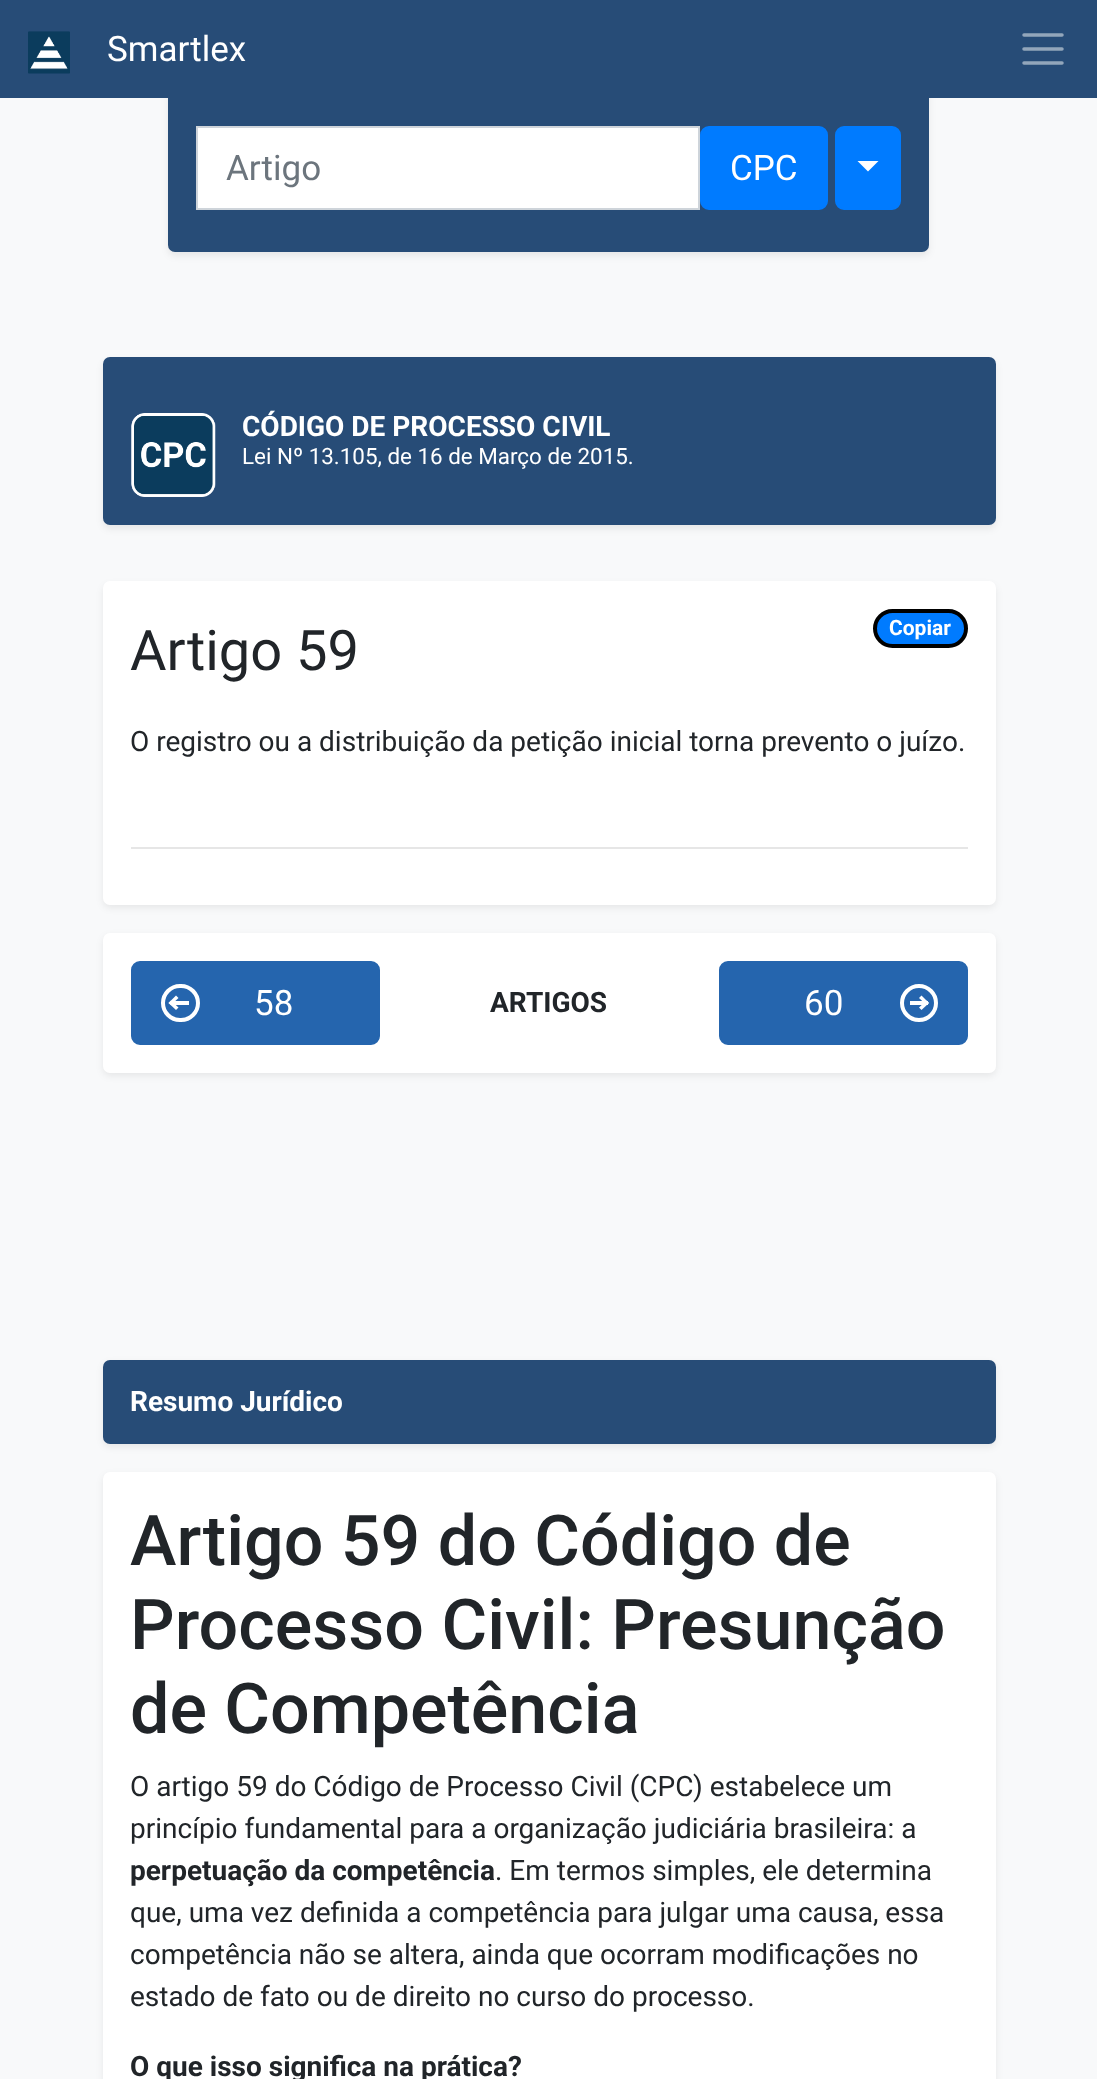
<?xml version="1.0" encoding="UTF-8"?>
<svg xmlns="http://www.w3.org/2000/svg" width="1097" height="2079">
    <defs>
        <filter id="blur1" x="-50%" y="-200%" width="200%" height="500%"><feGaussianBlur stdDeviation="3.5"/></filter>
    </defs>
    <rect width="100%" height="100%" fill="#F8F9FA"/>
    <rect x="168" y="88" width="761" height="168" rx="7" fill="#000000" fill-opacity="0.07" filter="url(#blur1)"/>
    <rect x="168" y="84" width="761" height="168" rx="7" fill="#274C77"/>
    <rect x="0" y="0" width="1097" height="98" fill="#274C77"/>
    <image x="28" y="31" width="42" height="43" href="img_01.png"/>
    <text x="107" y="61" font-family="Roboto" font-size="35" fill="#FFFFFF">Smartlex</text>
    <path d="M 1024 35 H 1062 M 1024 49 H 1062 M 1024 63 H 1062" fill="none" stroke="#93A6BB" stroke-width="3.5" stroke-linecap="round"/>
    <rect x="197" y="127" width="502" height="82" fill="#FFFFFF" stroke="#CED4DA" stroke-width="2"/>
    <text x="226" y="180" font-family="Roboto" font-size="35" fill="#6C757D">Artigo</text>
    <rect x="701" y="127" width="126" height="82" rx="8" fill="#007BFF" stroke="#007BFF" stroke-width="2"/>
    <text x="730" y="180" font-family="Roboto" font-size="35" fill="#FFFFFF">CPC</text>
    <rect x="836" y="127" width="64" height="82" rx="8" fill="#007BFF" stroke="#007BFF" stroke-width="2"/>
    <path d="M 857.5 161 H 878.5 L 868 171.5 Z" fill="#FFFFFF"/>
    <rect x="103" y="361" width="893" height="168" rx="7" fill="#000000" fill-opacity="0.07" filter="url(#blur1)"/>
    <rect x="103" y="357" width="893" height="168" rx="7" fill="#274C77"/>
    <image x="131" y="413" width="85" height="84" href="img_02.png"/>
    <text x="242" y="436" font-family="Roboto" font-size="28" font-weight="700" fill="#FFFFFF">CÓDIGO DE PROCESSO CIVIL</text>
    <text x="242" y="464" font-family="Roboto" font-size="22.4" fill="#FFFFFF">Lei Nº 13.105, de 16 de Março de 2015.</text>
    <rect x="103" y="585" width="893" height="323" rx="7" fill="#000000" fill-opacity="0.07" filter="url(#blur1)"/>
    <rect x="103" y="581" width="893" height="324" rx="7" fill="#FFFFFF"/>
    <rect x="875" y="611" width="91" height="35" rx="17.5" fill="#007BFF" stroke="#000000" stroke-width="4"/>
    <text x="889" y="635" font-family="Roboto" font-size="21" font-weight="700" fill="#FFFFFF">Copiar</text>
    <text x="130" y="670" font-family="Roboto" font-size="56" fill="#212529">Artigo 59</text>
    <text x="130" y="751" font-family="Roboto" font-size="28" fill="#212529">O registro ou a distribuição da petição inicial torna prevento o juízo.</text>
    <rect x="131" y="847" width="837" height="2" fill="#E6E6E6"/>
    <rect x="103" y="936" width="893" height="140" rx="7" fill="#000000" fill-opacity="0.07" filter="url(#blur1)"/>
    <rect x="103" y="933" width="893" height="140" rx="7" fill="#FFFFFF"/>
    <rect x="132" y="962" width="247" height="82" rx="8" fill="#2565AE" stroke="#2565AE" stroke-width="2"/>
    <rect x="163" y="986" width="35" height="34" rx="17" fill="none" stroke="#FFFFFF" stroke-width="4"/>
    <rect x="172" y="1001" width="17" height="4" fill="#FFFFFF"/>
    <path d="M 171 1000.5 L 178.5 1007.5 L 176 1010 L 168.5 1003 Z" fill="#FFFFFF"/>
    <path d="M 176 995.5 L 178.5 998 L 171 1005 L 168.5 1003 Z" fill="#FFFFFF"/>
    <text x="254" y="1015" font-family="Roboto" font-size="35" fill="#FFFFFF">58</text>
    <text x="490" y="1012" font-family="Roboto" font-size="28" font-weight="700" fill="#212529">ARTIGOS</text>
    <rect x="720" y="962" width="247" height="82" rx="8" fill="#2565AE" stroke="#2565AE" stroke-width="2"/>
    <text x="804" y="1015" font-family="Roboto" font-size="35" fill="#FFFFFF">60</text>
    <circle cx="919" cy="1003" r="17" fill="none" stroke="#FFFFFF" stroke-width="4"/>
    <rect x="910" y="1001" width="18" height="4" fill="#FFFFFF"/>
    <path d="M 921.5 995.5 L 929 1003 L 926.5 1005 L 919 998 Z" fill="#FFFFFF"/>
    <path d="M 926.5 1000.5 L 929 1003 L 921.5 1010 L 919 1007.5 Z" fill="#FFFFFF"/>
    <rect x="103" y="1363" width="893" height="84" rx="7" fill="#000000" fill-opacity="0.07" filter="url(#blur1)"/>
    <rect x="103" y="1360" width="893" height="84" rx="7" fill="#274C77"/>
    <text x="130" y="1411" font-family="Roboto" font-size="28" font-weight="700" fill="#FFFFFF">Resumo Jurídico</text>
    <rect x="103" y="1475" width="893" height="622" rx="7" fill="#000000" fill-opacity="0.07" filter="url(#blur1)"/>
    <rect x="103" y="1472" width="893" height="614" rx="7" fill="#FFFFFF"/>
    <text font-family="Roboto" font-size="70" font-weight="500" fill="#212529">
        <tspan x="130" y="1565">Artigo 59 do Código de</tspan>
        <tspan x="130" y="1649">Processo Civil: Presunção</tspan>
        <tspan x="130" y="1733">de Competência</tspan>
    </text>
    <text font-family="Roboto" font-size="28" fill="#212529">
        <tspan x="130" y="1796">O artigo 59 do Código de Processo Civil (CPC) estabelece um</tspan>
        <tspan x="130" y="1838">princípio fundamental para a organização judiciária brasileira: a</tspan>
    </text>
    <text x="130" y="1880" font-family="Roboto" font-size="28" font-weight="700" fill="#212529">perpetuação da competência</text>
    <text x="495" y="1880" font-family="Roboto" font-size="28" fill="#212529">. Em termos simples, ele determina</text>
    <text font-family="Roboto" font-size="28" fill="#212529">
        <tspan x="130" y="1922">que, uma vez definida a competência para julgar uma causa, essa</tspan>
        <tspan x="130" y="1964">competência não se altera, ainda que ocorram modificações no</tspan>
        <tspan x="130" y="2006">estado de fato ou de direito no curso do processo.</tspan>
    </text>
    <text x="130" y="2076" font-family="Roboto" font-size="28" font-weight="700" fill="#212529">O que isso significa na prática?</text>
</svg>
